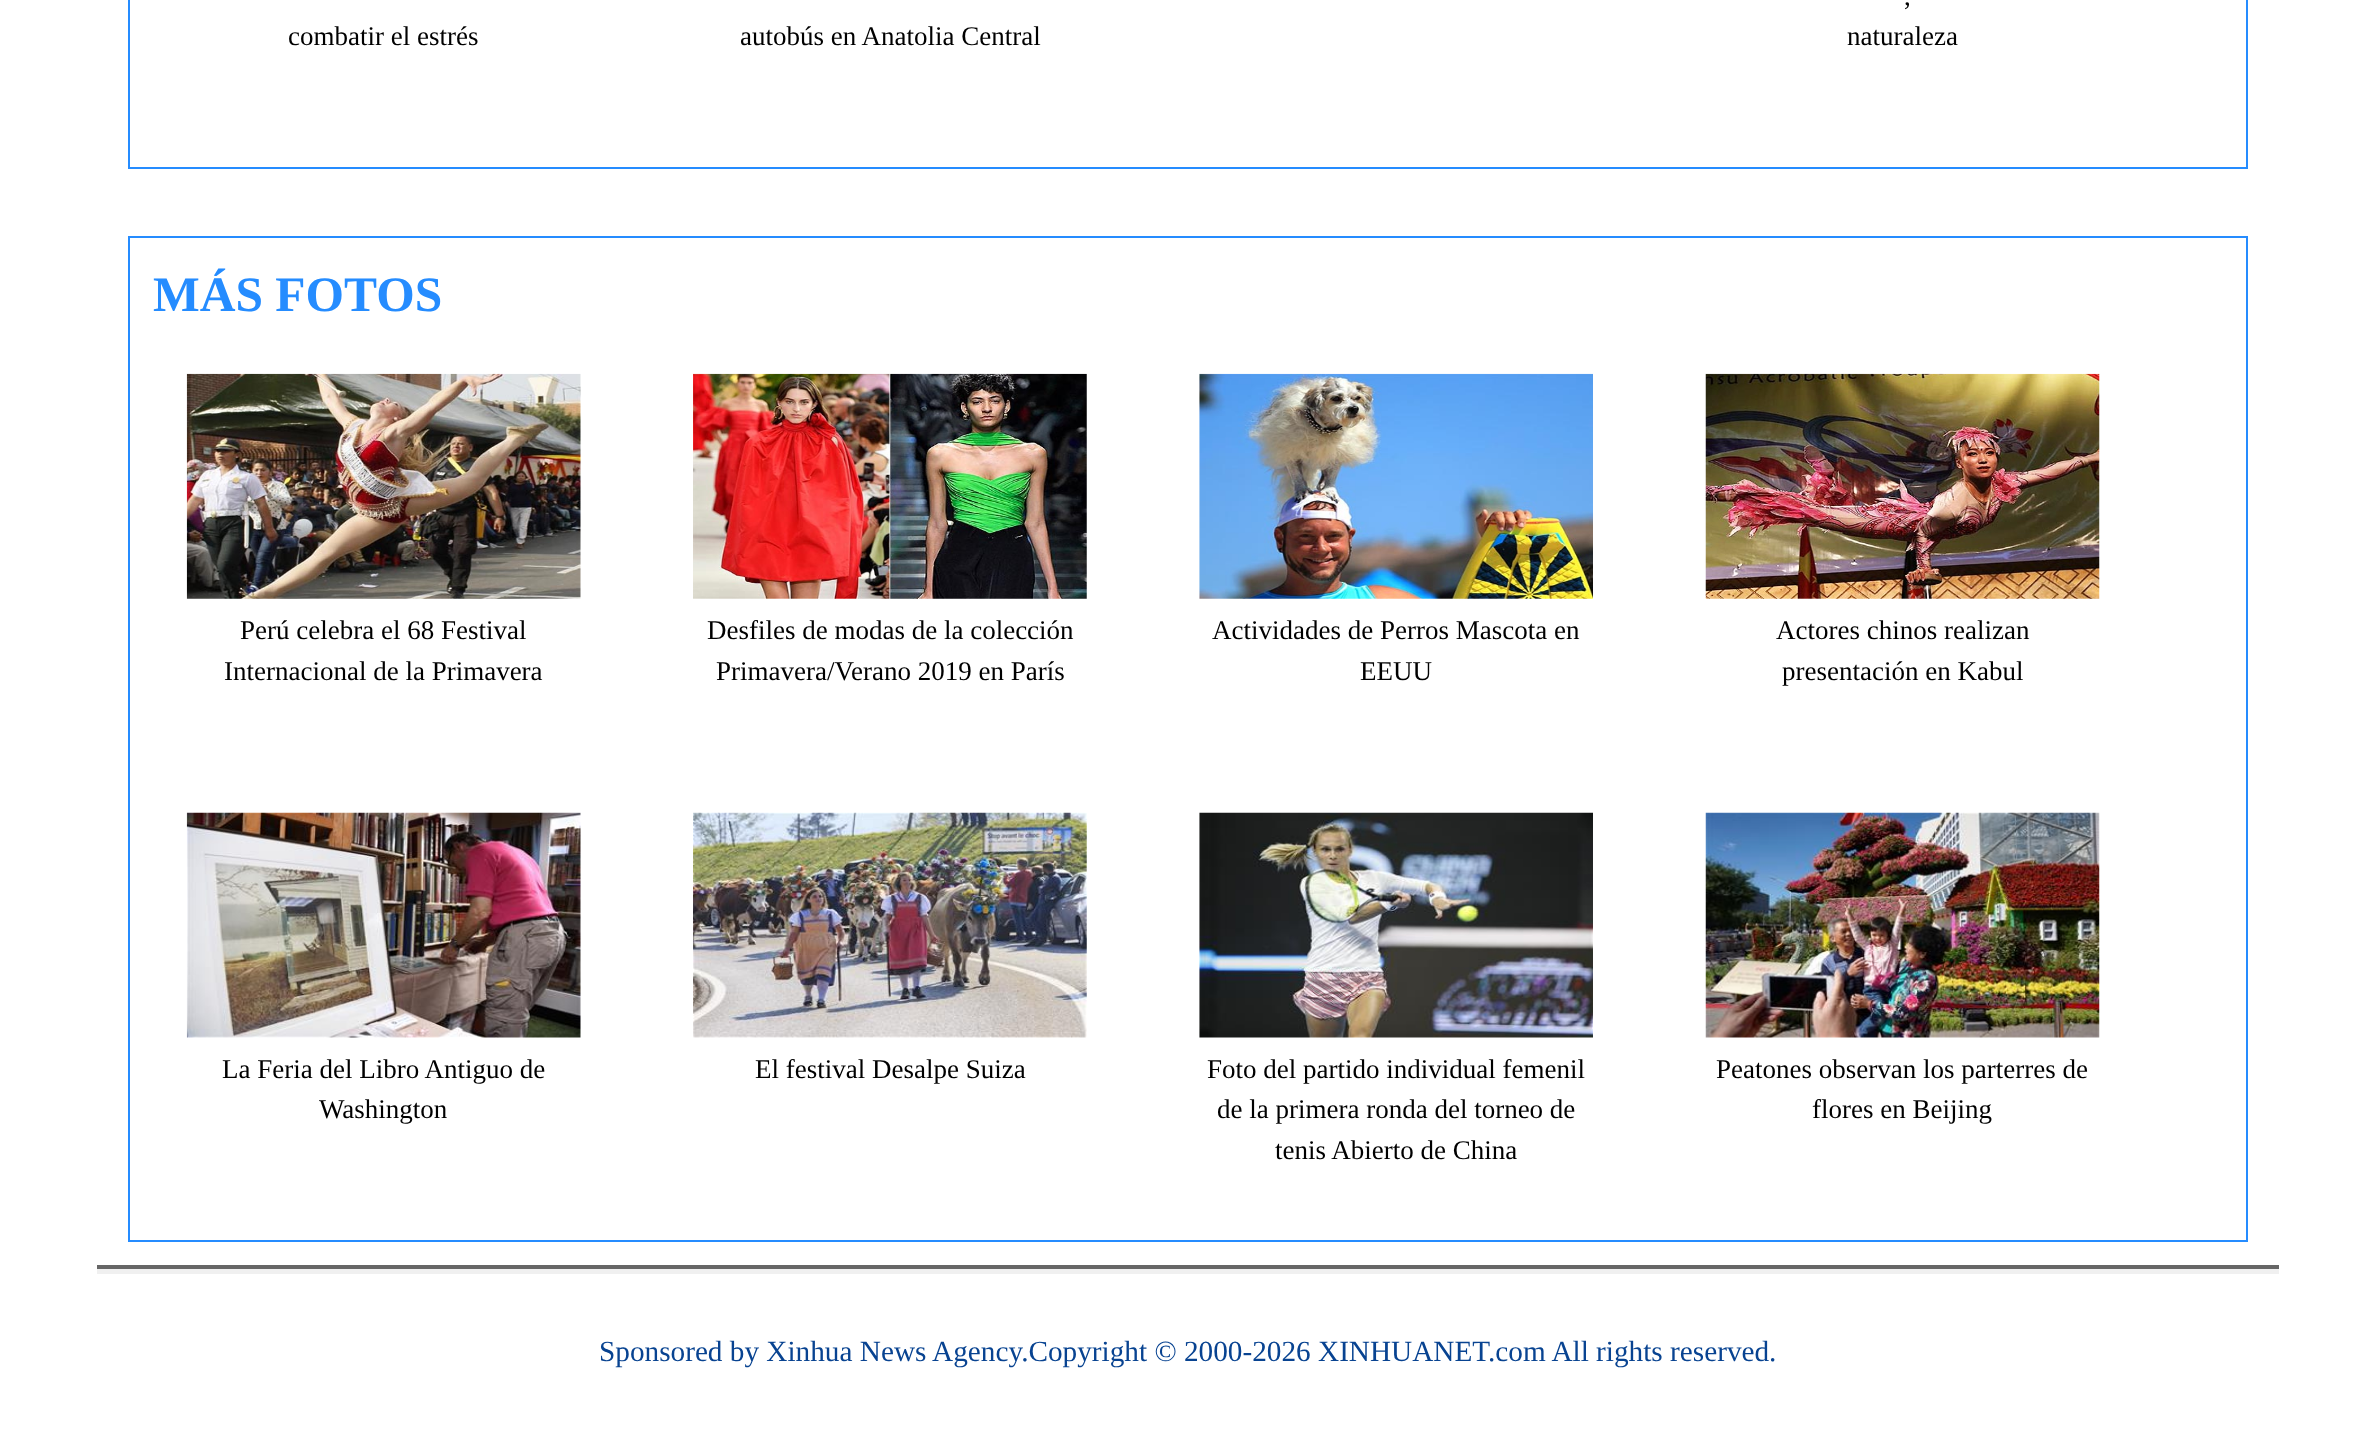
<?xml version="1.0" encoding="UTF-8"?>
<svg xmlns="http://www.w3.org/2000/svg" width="2375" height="1453">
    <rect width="100%" height="100%" fill="#FFFFFF"/>
    <rect x="129" y="-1" width="2118" height="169" fill="none" stroke="#258CFF" stroke-width="2"/>
    <text x="288" y="45" font-family="Liberation Serif" font-size="27" fill="#000000">combatir el estrés</text>
    <text x="740" y="45" font-family="Liberation Serif" font-size="27" fill="#000000">autobús en Anatolia Central</text>
    <text x="1904" y="5" font-family="Liberation Serif" font-size="27" fill="#000000">,</text>
    <text x="1847" y="45" font-family="Liberation Serif" font-size="27" fill="#000000">naturaleza</text>
    <rect x="129" y="237" width="2118" height="1004" fill="none" stroke="#258CFF" stroke-width="2"/>
    <text x="153" y="311" font-family="Liberation Serif" font-size="49.5" font-weight="700" fill="#258CFF">MÁS FOTOS</text>
    <image x="186" y="373" width="395" height="226" href="img_01.png"/>
    <text x="240" y="639" font-family="Liberation Serif" font-size="27" fill="#000000">Perú celebra el 68 Festival</text>
    <text x="224" y="680" font-family="Liberation Serif" font-size="27" fill="#000000">Internacional de la Primavera</text>
    <image x="693" y="373" width="394" height="226" href="img_02.png"/>
    <text x="707" y="639" font-family="Liberation Serif" font-size="27" fill="#000000">Desfiles de modas de la colección</text>
    <text x="716" y="680" font-family="Liberation Serif" font-size="27" fill="#000000">Primavera/Verano 2019 en París</text>
    <image x="1199" y="373" width="394" height="226" href="img_03.png"/>
    <text x="1212" y="639" font-family="Liberation Serif" font-size="27" fill="#000000">Actividades de Perros Mascota en</text>
    <text x="1360" y="680" font-family="Liberation Serif" font-size="27" fill="#000000">EEUU</text>
    <image x="1705" y="373" width="395" height="226" href="img_04.png"/>
    <text x="1776" y="639" font-family="Liberation Serif" font-size="27" fill="#000000">Actores chinos realizan</text>
    <text x="1782" y="680" font-family="Liberation Serif" font-size="27" fill="#000000">presentación en Kabul</text>
    <image x="186" y="812" width="395" height="226" href="img_05.png"/>
    <text x="222" y="1078" font-family="Liberation Serif" font-size="27" fill="#000000">La Feria del Libro Antiguo de</text>
    <text x="319" y="1118" font-family="Liberation Serif" font-size="27" fill="#000000">Washington</text>
    <image x="693" y="812" width="394" height="226" href="img_06.png"/>
    <text x="755" y="1078" font-family="Liberation Serif" font-size="27" fill="#000000">El festival Desalpe Suiza</text>
    <image x="1199" y="812" width="394" height="226" href="img_07.png"/>
    <text x="1207" y="1078" font-family="Liberation Serif" font-size="27" fill="#000000">Foto del partido individual femenil</text>
    <text x="1217" y="1118" font-family="Liberation Serif" font-size="27" fill="#000000">de la primera ronda del torneo de</text>
    <text x="1275" y="1159" font-family="Liberation Serif" font-size="27" fill="#000000">tenis Abierto de China</text>
    <image x="1705" y="812" width="395" height="226" href="img_08.png"/>
    <text x="1716" y="1078" font-family="Liberation Serif" font-size="27" fill="#000000">Peatones observan los parterres de</text>
    <text x="1812" y="1118" font-family="Liberation Serif" font-size="27" fill="#000000">flores en Beijing</text>
    <rect x="97" y="1265" width="2182" height="4" fill="#666666"/>
    <rect x="97" y="1269" width="2182" height="5" fill="#F0F0F0"/>
    <text x="599" y="1361" font-family="Liberation Serif" font-size="29.25" fill="#084391">Sponsored by Xinhua News Agency.Copyright © 2000-2026 XINHUANET.com All rights reserved.</text>
</svg>
